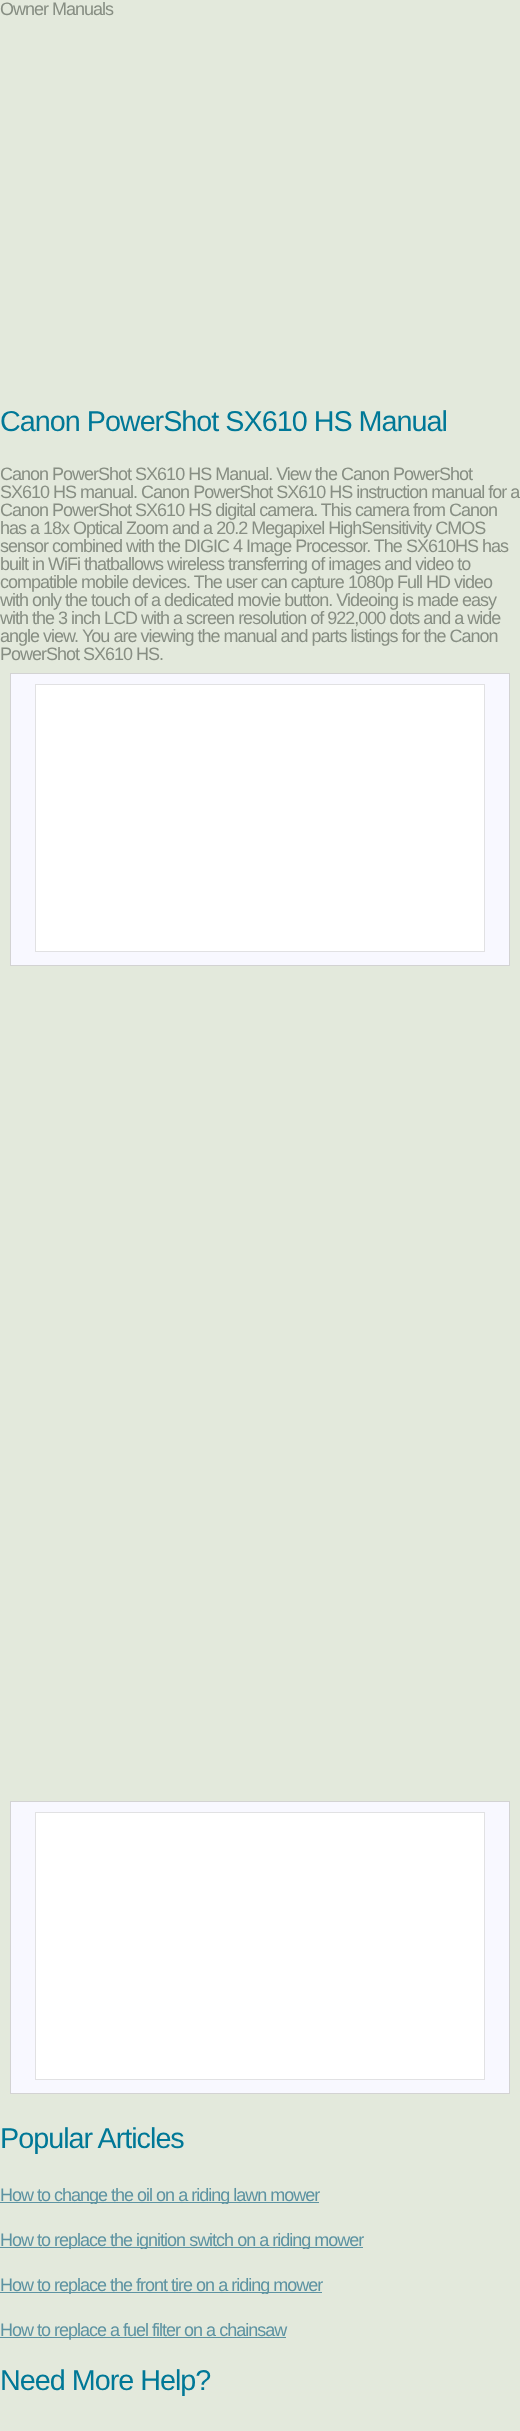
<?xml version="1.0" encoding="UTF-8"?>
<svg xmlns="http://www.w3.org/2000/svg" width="520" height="2431">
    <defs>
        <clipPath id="clip1"><rect x="0" y="2186" width="520" height="18"/></clipPath>
        <clipPath id="clip2"><rect x="0" y="2231" width="520" height="18"/></clipPath>
        <clipPath id="clip3"><rect x="0" y="2276" width="520" height="18"/></clipPath>
    </defs>
    <rect width="100%" height="100%" fill="#E3E9DC"/>
    <text x="0" y="15" font-family="Liberation Sans" font-size="18" letter-spacing="-1" fill="#878E83">Owner Manuals</text>
    <text x="0" y="431" font-family="Liberation Sans" font-size="28.75" letter-spacing="-1" fill="#007897">Canon PowerShot SX610 HS Manual</text>
    <text font-family="Liberation Sans" font-size="18" letter-spacing="-1" fill="#878E83">
        <tspan x="0" y="480">Canon PowerShot SX610 HS Manual. View the Canon PowerShot</tspan>
        <tspan x="0" y="498">SX610 HS manual. Canon PowerShot SX610 HS instruction manual for a</tspan>
        <tspan x="0" y="516">Canon PowerShot SX610 HS digital camera. This camera from Canon</tspan>
        <tspan x="0" y="534">has a 18x Optical Zoom and a 20.2 Megapixel HighSensitivity CMOS</tspan>
        <tspan x="0" y="552">sensor combined with the DIGIC 4 Image Processor. The SX610HS has</tspan>
        <tspan x="0" y="570">built in WiFi thatballows wireless transferring of images and video to</tspan>
        <tspan x="0" y="588">compatible mobile devices. The user can capture 1080p Full HD video</tspan>
        <tspan x="0" y="606">with only the touch of a dedicated movie button. Videoing is made easy</tspan>
        <tspan x="0" y="624">with the 3 inch LCD with a screen resolution of 922,000 dots and a wide</tspan>
        <tspan x="0" y="642">angle view.</tspan>
    </text>
    <text x="82" y="642" font-family="Liberation Sans" font-size="18" letter-spacing="-1" fill="#878E83">You are viewing the manual and parts listings for the Canon</text>
    <text x="0" y="660" font-family="Liberation Sans" font-size="18" letter-spacing="-1" fill="#878E83">PowerShot SX610 HS.</text>
    <rect x="10.5" y="673.5" width="499" height="292" fill="#F8F8FF" stroke="#D3D3D3"/>
    <rect x="35.5" y="684.5" width="449" height="267" fill="#FFFFFF" stroke="#E1E1E3"/>
    <rect x="10.5" y="1801.5" width="499" height="292" fill="#F8F8FF" stroke="#D3D3D3"/>
    <rect x="35.5" y="1812.5" width="449" height="267" fill="#FFFFFF" stroke="#E1E1E3"/>
    <text x="0" y="2148" font-family="Liberation Sans" font-size="28.75" letter-spacing="-1" fill="#007897">Popular Articles</text>
    <rect x="0" y="2202" width="319" height="1" fill="#5D93A2"/>
    <g clip-path="url(#clip1)">
        <text x="0" y="2201" font-family="Liberation Sans" font-size="18" letter-spacing="-1" fill="#5D93A2">How to change the oil on a riding lawn mower</text>
    </g>
    <rect x="0" y="2247" width="363" height="1" fill="#5D93A2"/>
    <g clip-path="url(#clip2)">
        <text x="0" y="2246" font-family="Liberation Sans" font-size="18" letter-spacing="-1" fill="#5D93A2">How to replace the ignition switch on a riding mower</text>
    </g>
    <rect x="0" y="2292" width="322" height="1" fill="#5D93A2"/>
    <g clip-path="url(#clip3)">
        <text x="0" y="2291" font-family="Liberation Sans" font-size="18" letter-spacing="-1" fill="#5D93A2">How to replace the front tire on a riding mower</text>
    </g>
    <rect x="0" y="2337" width="286" height="1" fill="#5D93A2"/>
    <text x="0" y="2336" font-family="Liberation Sans" font-size="18" letter-spacing="-1" fill="#5D93A2">How to replace a fuel filter on a chainsaw</text>
    <text x="0" y="2390" font-family="Liberation Sans" font-size="28.75" letter-spacing="-1" fill="#007897">Need More Help?</text>
</svg>
